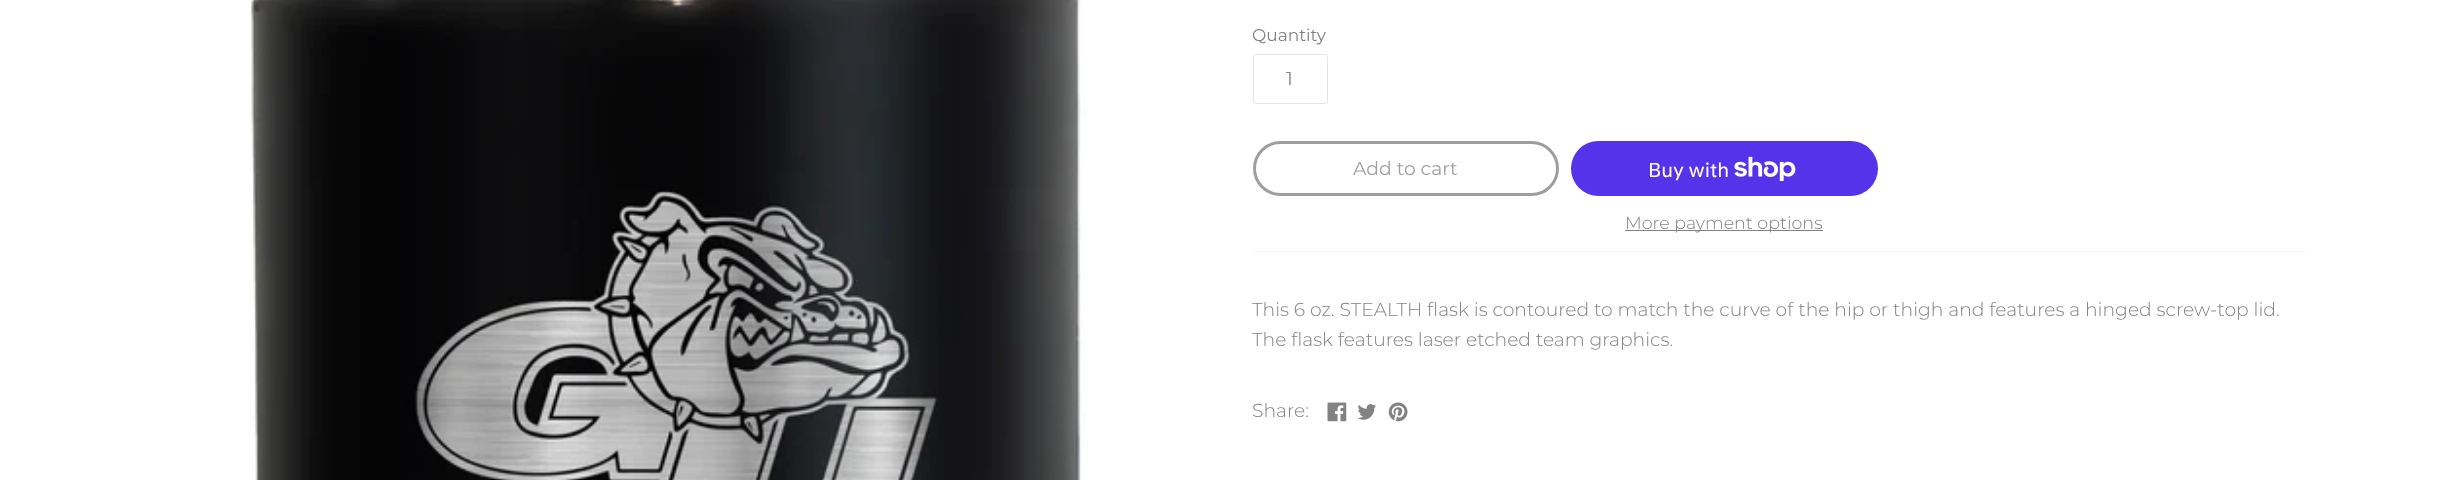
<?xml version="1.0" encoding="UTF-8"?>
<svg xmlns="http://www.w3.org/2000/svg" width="2453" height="480">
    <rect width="100%" height="100%" fill="#FFFFFF"/>
    <image x="250" y="0" width="835" height="480" href="img_01.png"/>
    <rect x="1253" y="251" width="1052" height="1" fill="#F4F4F4"/>
    <text x="1252" y="41" font-family="Montserrat" font-size="17" fill="#828282">Quantity</text>
    <rect x="1253.5" y="54.5" width="74" height="49" rx="2" fill="none" stroke="#E5E5E5"/>
    <text x="1286" y="85" font-family="Montserrat" font-size="18.75" fill="#828282">1</text>
    <rect x="1254.5" y="142.5" width="303" height="52" rx="26" fill="none" stroke="#A19D9D" stroke-width="3"/>
    <text x="1353" y="175" font-family="Montserrat" font-size="18.75" fill="#A19D9D">Add to cart</text>
    <rect x="1571" y="141" width="307" height="55" rx="27.5" fill="#5433EB"/>
    <text x="1648" y="177" font-family="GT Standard" font-size="20" fill="#FFFFFF">Buy with</text>
    <image x="1734" y="156" width="62" height="25" href="img_02.png"/>
    <rect x="1625" y="230" width="198" height="1" fill="#828282"/>
    <text x="1625" y="229" font-family="Montserrat" font-size="17.5" font-weight="300" fill="#828282">More payment options</text>
    <text font-family="Montserrat" font-size="18.75" font-weight="300" fill="#828282">
        <tspan x="1252" y="316">This 6 oz. STEALTH flask is contoured to match the curve of the hip or thigh and features a hinged screw-top lid.</tspan>
        <tspan x="1252" y="346">The flask features laser etched team graphics.</tspan>
    </text>
    <text x="1252" y="417" font-family="Montserrat" font-size="18.75" font-weight="300" fill="#828282">Share:</text>
    <image x="1327" y="402" width="20" height="20" href="img_03.png"/>
    <image x="1357" y="404" width="19" height="16" href="img_04.png"/>
    <image x="1388" y="402" width="20" height="20" href="img_05.png"/>
</svg>
